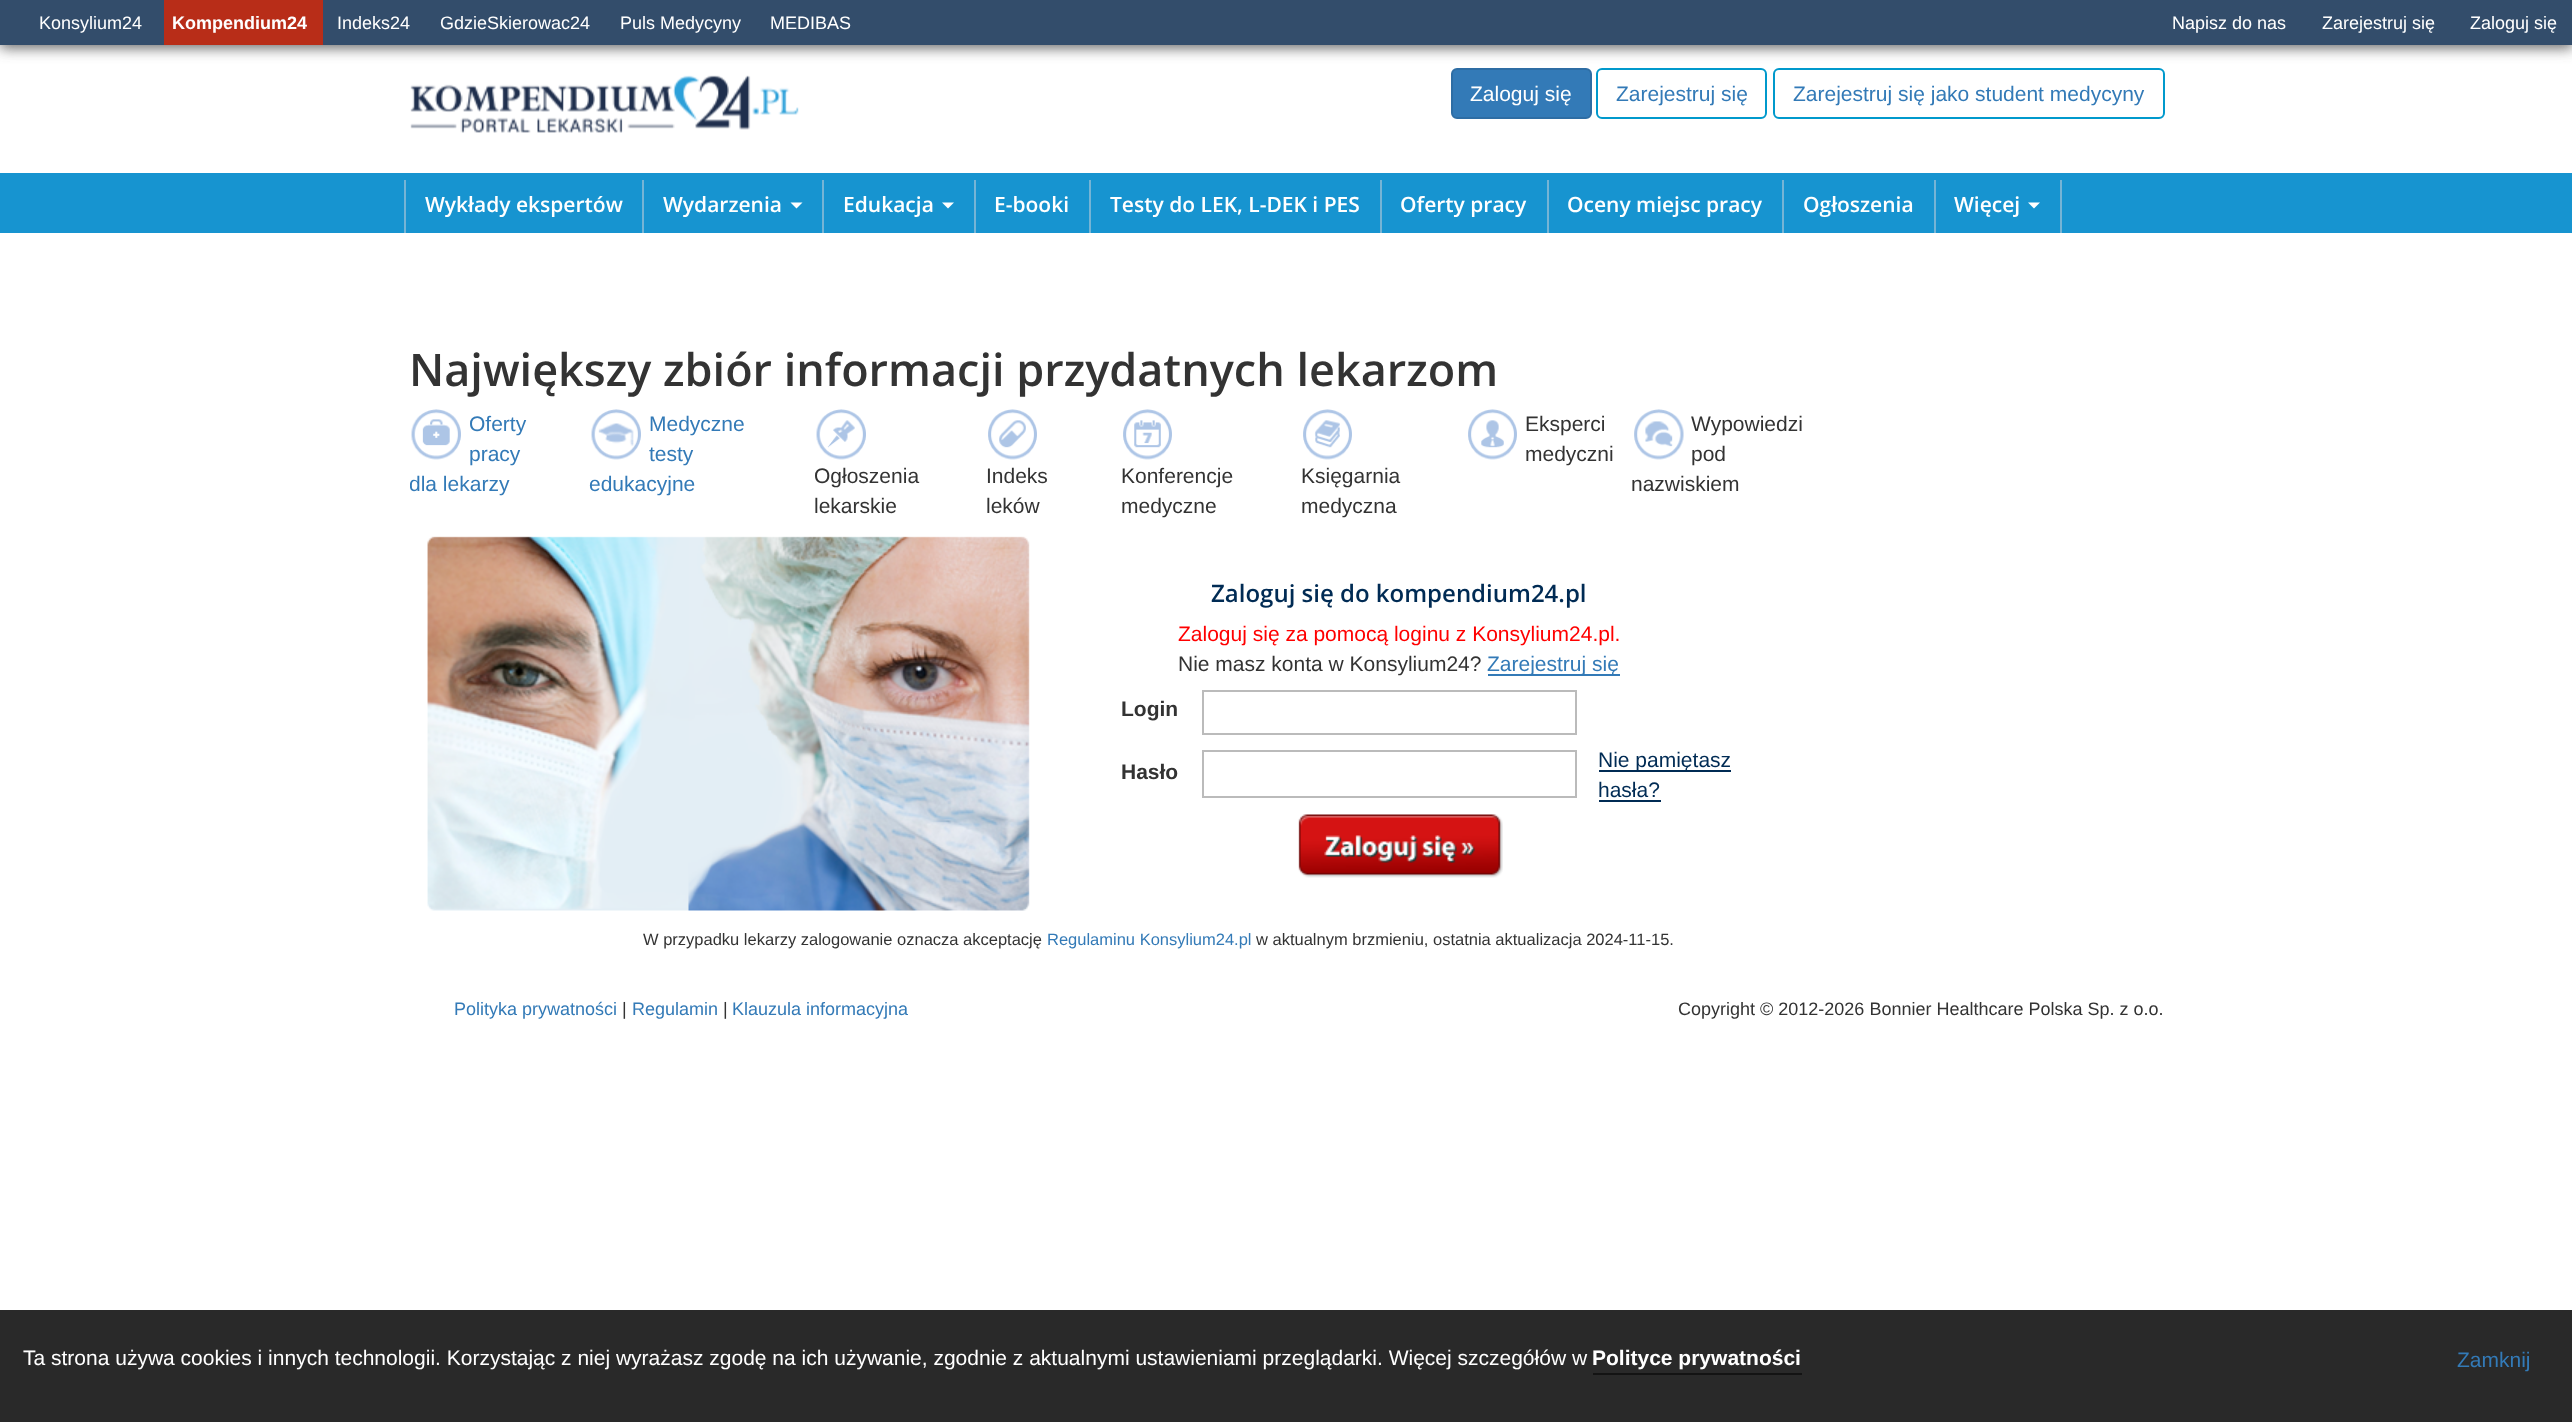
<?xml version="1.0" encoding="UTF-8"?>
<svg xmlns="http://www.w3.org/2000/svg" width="2572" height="1422">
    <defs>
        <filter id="blur1" x="-50%" y="-200%" width="200%" height="500%"><feGaussianBlur stdDeviation="7"/></filter>
        <clipPath id="clip1"><rect x="410" y="314" width="1500" height="615"/></clipPath>
    </defs>
    <rect width="100%" height="100%" fill="#FFFFFF"/>
    <rect x="1452" y="69" width="139" height="49" rx="5" fill="#337AB7" stroke="#2E6DA4" stroke-width="2"/>
    <rect x="1597" y="69" width="169" height="49" rx="5" fill="none" stroke="#0099CC" stroke-width="2"/>
    <rect x="1774" y="69" width="390" height="49" rx="5" fill="none" stroke="#0099CC" stroke-width="2"/>
    <rect x="0" y="3" width="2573" height="45" fill="#666666" filter="url(#blur1)"/>
    <rect x="0" y="0" width="2572" height="45" fill="#334D6B"/>
    <text x="39" y="29" font-family="Liberation Sans" font-size="18" fill="#FFFFFF">Konsylium24</text>
    <rect x="164" y="0" width="159" height="45" fill="#B82D18"/>
    <text x="172" y="29" font-family="Liberation Sans" font-size="18" font-weight="700" fill="#FFFFFF">Kompendium24</text>
    <text x="337" y="29" font-family="Liberation Sans" font-size="18" fill="#FFFFFF">Indeks24</text>
    <text x="440" y="29" font-family="Liberation Sans" font-size="18" fill="#FFFFFF">GdzieSkierowac24</text>
    <text x="620" y="29" font-family="Liberation Sans" font-size="18" fill="#FFFFFF">Puls Medycyny</text>
    <text x="770" y="29" font-family="Liberation Sans" font-size="18" fill="#FFFFFF">MEDIBAS</text>
    <text x="2172" y="29" font-family="Liberation Sans" font-size="18" fill="#FFFFFF">Napisz do nas</text>
    <text x="2322" y="29" font-family="Liberation Sans" font-size="18" fill="#FFFFFF">Zarejestruj się</text>
    <text x="2470" y="29" font-family="Liberation Sans" font-size="18" fill="#FFFFFF">Zaloguj się</text>
    <image x="410" y="75" width="389" height="58" href="img_01.png"/>
    <text x="1470" y="101" font-family="Liberation Sans" font-size="21" fill="#FFFFFF">Zaloguj się</text>
    <text x="1616" y="101" font-family="Liberation Sans" font-size="21" fill="#337AB7">Zarejestruj się</text>
    <text x="1793" y="101" font-family="Liberation Sans" font-size="21" fill="#337AB7">Zarejestruj się jako student medycyny</text>
    <rect x="0" y="173" width="2572" height="60" fill="#1794D0"/>
    <rect x="642" y="180" width="2" height="53" fill="#75B4D5"/>
    <rect x="404" y="180" width="2" height="53" fill="#75B4D5"/>
    <text x="425" y="212" font-family="Open Sans" font-size="21" font-weight="600" fill="#FFFFFF">Wykłady ekspertów</text>
    <rect x="822" y="180" width="2" height="53" fill="#75B4D5"/>
    <text x="663" y="212" font-family="Open Sans" font-size="21" font-weight="600" fill="#FFFFFF">Wydarzenia</text>
    <path d="M 790.5 202.5 H 802.5 L 796.5 208.5 Z" fill="#FFFFFF"/>
    <rect x="974" y="180" width="2" height="53" fill="#75B4D5"/>
    <text x="843" y="212" font-family="Open Sans" font-size="21" font-weight="600" fill="#FFFFFF">Edukacja</text>
    <path d="M 942 202.5 H 954 L 948 208.5 Z" fill="#FFFFFF"/>
    <rect x="1089" y="180" width="2" height="53" fill="#75B4D5"/>
    <text x="994" y="212" font-family="Open Sans" font-size="21" font-weight="600" fill="#FFFFFF">E-booki</text>
    <rect x="1380" y="180" width="2" height="53" fill="#75B4D5"/>
    <text x="1110" y="212" font-family="Open Sans" font-size="21" font-weight="600" fill="#FFFFFF">Testy do LEK, L-DEK i PES</text>
    <rect x="1547" y="180" width="2" height="53" fill="#75B4D5"/>
    <text x="1400" y="212" font-family="Open Sans" font-size="21" font-weight="600" fill="#FFFFFF">Oferty pracy</text>
    <rect x="1782" y="180" width="2" height="53" fill="#75B4D5"/>
    <text x="1567" y="212" font-family="Open Sans" font-size="21" font-weight="600" fill="#FFFFFF">Oceny miejsc pracy</text>
    <rect x="1934" y="180" width="2" height="53" fill="#75B4D5"/>
    <text x="1803" y="212" font-family="Open Sans" font-size="21" font-weight="600" fill="#FFFFFF">Ogłoszenia</text>
    <rect x="2060" y="180" width="2" height="53" fill="#75B4D5"/>
    <text x="1954" y="212" font-family="Open Sans" font-size="21" font-weight="600" fill="#FFFFFF">Więcej</text>
    <path d="M 2028 202.5 H 2040 L 2034 208.5 Z" fill="#FFFFFF"/>
    <text x="409" y="386" font-family="Open Sans" font-size="45" font-weight="600" fill="#333333">Największy zbiór informacji przydatnych lekarzom</text>
    <image x="411" y="409" width="50" height="51" href="img_02.png"/>
    <text font-family="Liberation Sans" font-size="21" fill="#337AB7">
        <tspan x="469" y="431">Oferty</tspan>
        <tspan x="469" y="461">pracy</tspan>
    </text>
    <g clip-path="url(#clip1)">
        <text x="409" y="491" font-family="Liberation Sans" font-size="21" fill="#337AB7">dla lekarzy</text>
    </g>
    <image x="591" y="409" width="50" height="51" href="img_03.png"/>
    <text font-family="Liberation Sans" font-size="21" fill="#337AB7">
        <tspan x="649" y="431">Medyczne</tspan>
        <tspan x="649" y="461">testy</tspan>
    </text>
    <text x="589" y="491" font-family="Liberation Sans" font-size="21" fill="#337AB7">edukacyjne</text>
    <image x="816" y="409" width="50" height="51" href="img_04.png"/>
    <text font-family="Liberation Sans" font-size="21" fill="#333333">
        <tspan x="814" y="483">Ogłoszenia</tspan>
        <tspan x="814" y="513">lekarskie</tspan>
    </text>
    <image x="988" y="409" width="49" height="51" href="img_05.png"/>
    <text font-family="Liberation Sans" font-size="21" fill="#333333">
        <tspan x="986" y="483">Indeks</tspan>
        <tspan x="986" y="513">leków</tspan>
    </text>
    <image x="1123" y="409" width="49" height="51" href="img_06.png"/>
    <text font-family="Liberation Sans" font-size="21" fill="#333333">
        <tspan x="1121" y="483">Konferencje</tspan>
        <tspan x="1121" y="513">medyczne</tspan>
    </text>
    <image x="1303" y="409" width="49" height="51" href="img_07.png"/>
    <text font-family="Liberation Sans" font-size="21" fill="#333333">
        <tspan x="1301" y="483">Księgarnia</tspan>
        <tspan x="1301" y="513">medyczna</tspan>
    </text>
    <image x="1468" y="409" width="49" height="51" href="img_08.png"/>
    <text font-family="Liberation Sans" font-size="21" fill="#333333">
        <tspan x="1525" y="431">Eksperci</tspan>
        <tspan x="1525" y="461">medyczni</tspan>
    </text>
    <image x="1634" y="409" width="50" height="51" href="img_09.png"/>
    <text font-family="Liberation Sans" font-size="21" fill="#333333">
        <tspan x="1691" y="431">Wypowiedzi</tspan>
        <tspan x="1691" y="461">pod</tspan>
    </text>
    <text x="1631" y="491" font-family="Liberation Sans" font-size="21" fill="#333333">nazwiskiem</text>
    <image x="427" y="536" width="603" height="375" href="img_10.png"/>
    <text x="1211" y="602" font-family="Open Sans" font-size="24" font-weight="600" fill="#002B54">Zaloguj się do kompendium24.pl</text>
    <text x="1178" y="641" font-family="Liberation Sans" font-size="21" fill="#FF0000">Zaloguj się za pomocą loginu z Konsylium24.pl.</text>
    <text x="1178" y="671" font-family="Liberation Sans" font-size="21" fill="#333333">Nie masz konta w Konsylium24?</text>
    <rect x="1488" y="674" width="132" height="2" fill="#337AB7"/>
    <text x="1487" y="671" font-family="Liberation Sans" font-size="21" fill="#337AB7">Zarejestruj się</text>
    <text x="1121" y="716" font-family="Liberation Sans" font-size="21" font-weight="700" fill="#333333">Login</text>
    <rect x="1203" y="691" width="373" height="43" fill="none" stroke="#BBBBBB" stroke-width="2"/>
    <text x="1121" y="779" font-family="Liberation Sans" font-size="21" font-weight="700" fill="#333333">Hasło</text>
    <rect x="1203" y="751" width="373" height="46" fill="none" stroke="#BBBBBB" stroke-width="2"/>
    <rect x="1599" y="770" width="132" height="2" fill="#002B54"/>
    <text font-family="Liberation Sans" font-size="21" fill="#002B54">
        <tspan x="1598" y="767">Nie pamiętasz</tspan>
        <tspan x="1598" y="797">hasła?</tspan>
    </text>
    <rect x="1599" y="800" width="62" height="2" fill="#002B54"/>
    <image x="1298" y="814" width="205" height="64" href="img_11.png"/>
    <text x="643" y="945" font-family="Liberation Sans" font-size="16.5" fill="#333333">W przypadku lekarzy zalogowanie oznacza akceptację</text>
    <text x="1047" y="945" font-family="Liberation Sans" font-size="16.5" fill="#337AB7">Regulaminu Konsylium24.pl</text>
    <text x="1256" y="945" font-family="Liberation Sans" font-size="16.5" fill="#333333">w aktualnym brzmieniu, ostatnia aktualizacja 2024-11-15.</text>
    <text x="454" y="1015" font-family="Liberation Sans" font-size="18" fill="#337AB7">Polityka prywatności</text>
    <text x="622" y="1015" font-family="Liberation Sans" font-size="18" fill="#333333">|</text>
    <text x="632" y="1015" font-family="Liberation Sans" font-size="18" fill="#337AB7">Regulamin</text>
    <text x="723" y="1015" font-family="Liberation Sans" font-size="18" fill="#333333">|</text>
    <text x="732" y="1015" font-family="Liberation Sans" font-size="18" fill="#337AB7">Klauzula informacyjna</text>
    <text x="1678" y="1015" font-family="Liberation Sans" font-size="18" fill="#333333">Copyright © 2012-2026 Bonnier Healthcare Polska Sp. z o.o.</text>
    <rect x="0" y="1310" width="2572" height="112" fill="#292929"/>
    <text x="23" y="1365" font-family="Liberation Sans" font-size="21" fill="#FFFFFF">Ta strona używa cookies i innych technologii. Korzystając z niej wyrażasz zgodę na ich używanie, zgodnie z aktualnymi ustawieniami przeglądarki. Więcej szczegółów w</text>
    <text x="1592" y="1365" font-family="Liberation Sans" font-size="21" font-weight="700" fill="#FFFFFF">Polityce prywatności</text>
    <rect x="1593" y="1373" width="209" height="2" fill="#131313"/>
    <text x="2457" y="1367" font-family="Liberation Sans" font-size="21" fill="#337AB7">Zamknij</text>
</svg>
